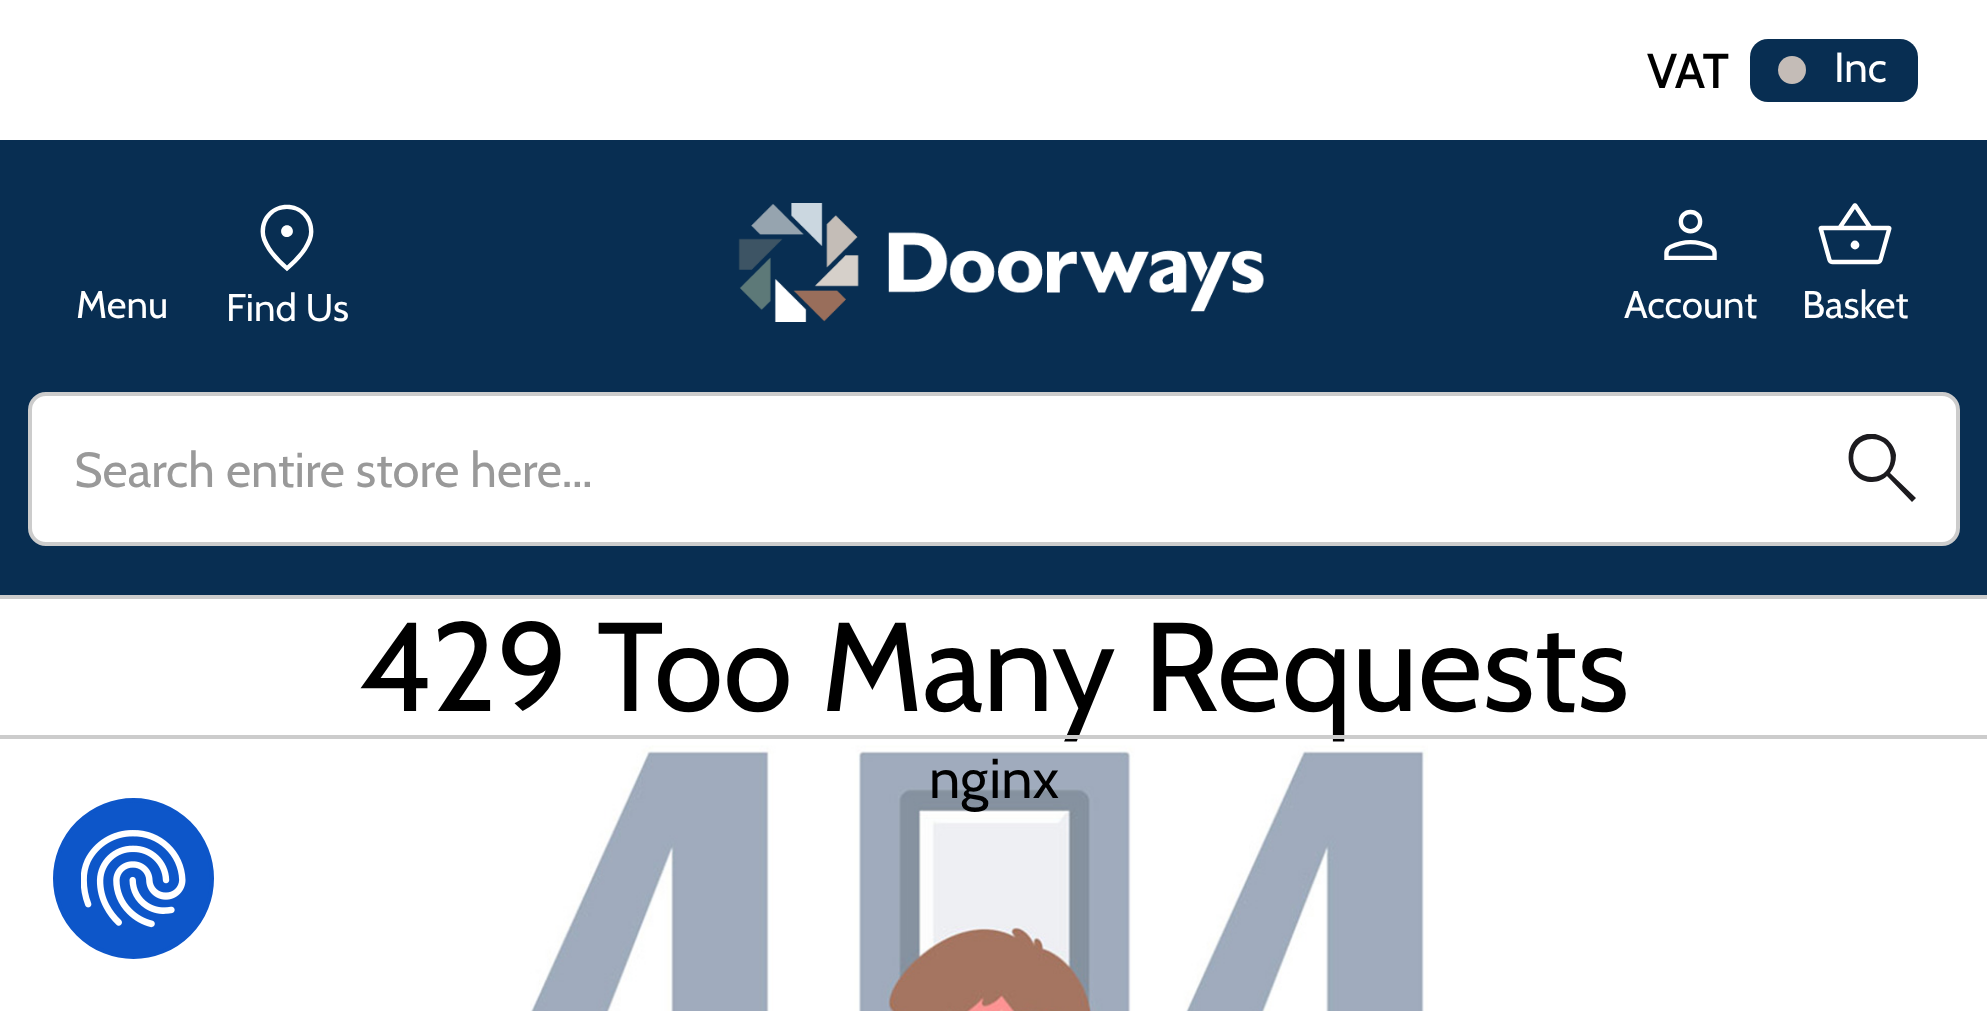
<?xml version="1.0" encoding="UTF-8"?>
<svg xmlns="http://www.w3.org/2000/svg" width="1987" height="1011">
    <defs>
        <clipPath id="clip1"><rect x="1848" y="434" width="70" height="70"/></clipPath>
    </defs>
    <rect width="100%" height="100%" fill="#FFFFFF"/>
    <text x="1647" y="88" font-family="Cabin" font-size="49" font-weight="500" fill="#000000">VAT</text>
    <rect x="1750" y="39" width="168" height="63" rx="18" fill="#082E52"/>
    <circle cx="1792" cy="70" r="14" fill="#C4BCB7"/>
    <text x="1834" y="82" font-family="Cabin" font-size="42" fill="#FFFFFF">Inc</text>
    <rect x="0" y="140" width="1987" height="455" fill="#082E52"/>
    <text x="76" y="318" font-family="Cabin" font-size="38.5" fill="#FFFFFF">Menu</text>
    <image x="260" y="204" width="54" height="68" href="img_01.png"/>
    <text x="226" y="321" font-family="Cabin" font-size="38.5" fill="#FFFFFF">Find Us</text>
    <image x="738" y="203" width="526" height="119" href="img_02.png"/>
    <image x="1664" y="209" width="53" height="51" href="img_03.png"/>
    <text x="1624" y="318" font-family="Cabin" font-size="38.5" fill="#FFFFFF">Account</text>
    <image x="1818" y="203" width="74" height="62" href="img_04.png"/>
    <text x="1802" y="318" font-family="Cabin" font-size="38.5" fill="#FFFFFF">Basket</text>
    <rect x="30" y="394" width="1928" height="150" rx="16" fill="#FFFFFF" stroke="#CCCCCC" stroke-width="4"/>
    <text x="74" y="487" font-family="Cabin" font-size="49" fill="#999999">Search entire store here...</text>
    <g clip-path="url(#clip1)">
        <path d="M 1912 502 L 1887 476 C 1882 481 1876 482 1870 482 C 1843 479 1841 439 1867 434 C 1873 433 1878 434 1883 437 C 1890 440 1895 448 1896 455 C 1896 462 1894 468 1890 473 L 1916 498 Z M 1872 477 C 1897 477 1897 439 1872 439 C 1847 439 1847 477 1872 477 Z" fill="#1C1B1F"/>
    </g>
    <text x="358" y="711" font-family="Cabin" font-size="126" fill="#000000">429 Too Many Requests</text>
    <rect x="0" y="735" width="1987" height="4" fill="#CCCCCC"/>
    <image x="530" y="745" width="898" height="266" href="img_05.png"/>
    <text x="929" y="798" font-family="Cabin" font-size="56" fill="#000000">nginx</text>
    <rect x="0" y="595" width="1987" height="4" fill="#CCCCCC"/>
    <circle cx="133.5" cy="878.5" r="78.5" fill="#0D56C9" stroke="#0D56C9" stroke-width="4"/>
    <image x="81" y="830" width="105" height="98" href="img_06.png"/>
</svg>
